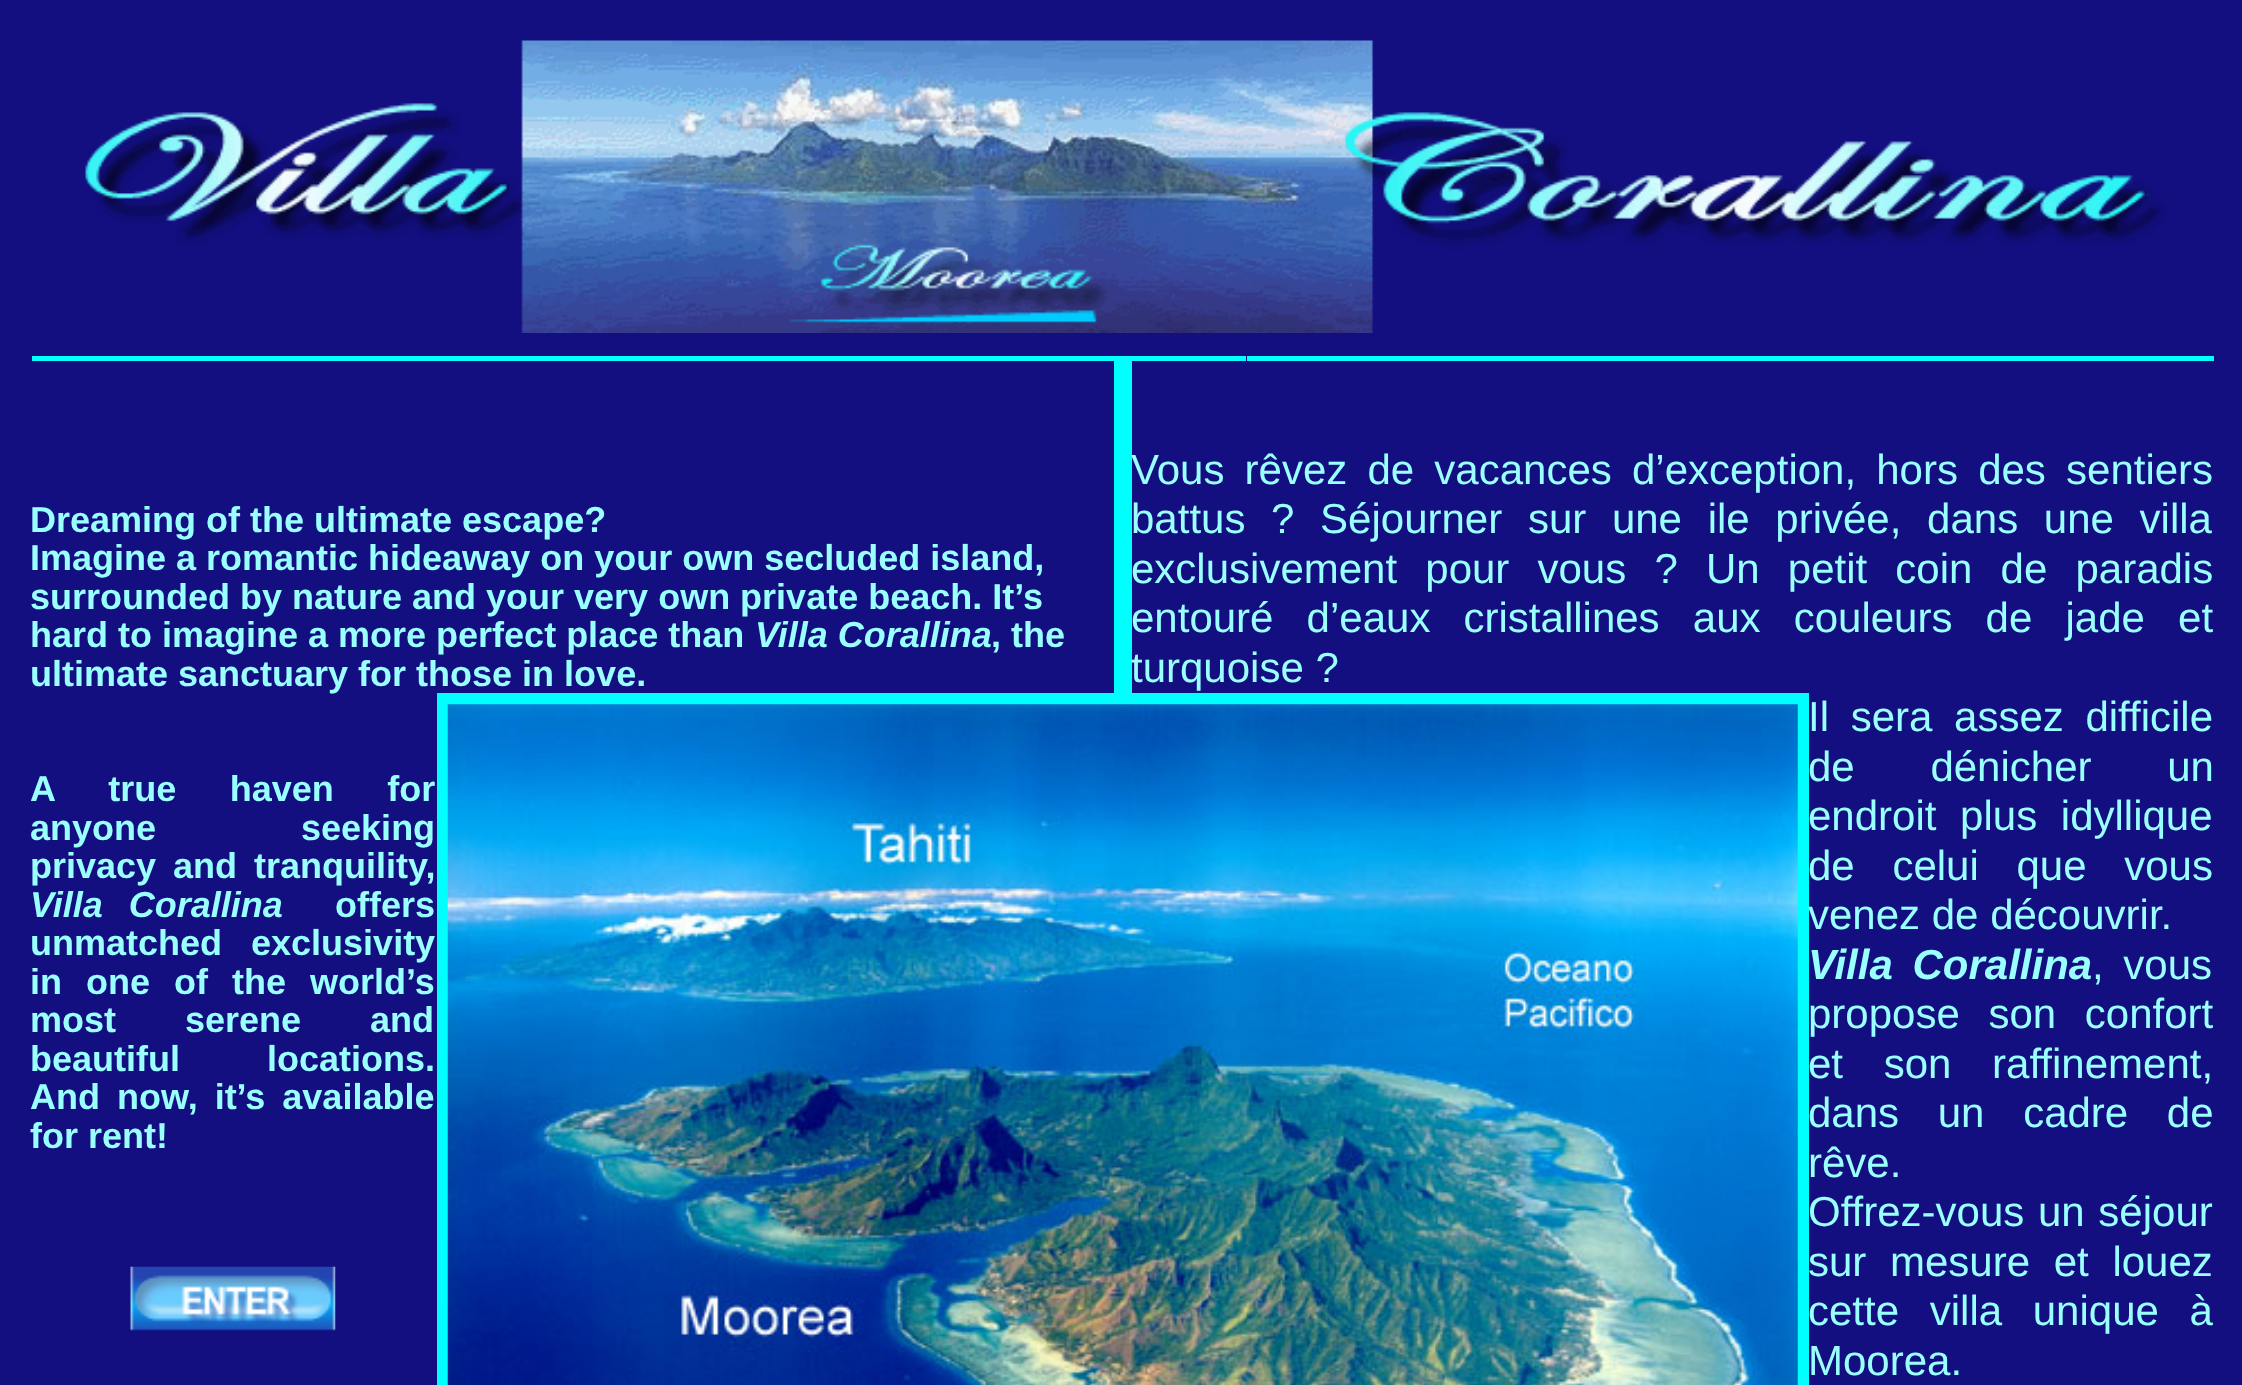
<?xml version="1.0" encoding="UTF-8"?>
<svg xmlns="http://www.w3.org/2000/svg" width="2242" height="1385">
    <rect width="100%" height="100%" fill="#130F81"/>
    <image x="85" y="40" width="2082" height="293" href="img_01.png"/>
    <rect x="32" y="356" width="1082" height="5" fill="#00FFFF"/>
    <rect x="1114" y="356" width="18" height="4" fill="#00FFFF"/>
    <rect x="1132" y="356" width="114" height="5" fill="#00FFFF"/>
    <rect x="1247" y="356" width="967" height="5" fill="#00FFFF"/>
    <text font-family="Liberation Sans" font-size="36" font-weight="700" fill="#99FFFF">
        <tspan x="30" y="532">Dreaming of the ultimate escape?</tspan>
        <tspan x="30" y="570">Imagine a romantic hideaway on your own secluded island,</tspan>
        <tspan x="30" y="609">surrounded by nature and your very own private beach. It’s</tspan>
        <tspan x="30" y="647">hard to imagine a more perfect place than</tspan>
    </text>
    <text x="755" y="647" font-family="Liberation Sans" font-size="36" font-weight="700" font-style="italic" fill="#99FFFF">Villa Corallina</text>
    <text x="991" y="647" font-family="Liberation Sans" font-size="36" font-weight="700" fill="#99FFFF">, the</text>
    <rect x="437" y="693" width="1372" height="692" fill="#00FFFF"/>
    <text x="30" y="686" font-family="Liberation Sans" font-size="36" font-weight="700" fill="#99FFFF">ultimate sanctuary for those in love.</text>
    <rect x="1114" y="360" width="18" height="333" fill="#00FFFF"/>
    <text font-family="Liberation Sans" font-size="42" fill="#99FFFF">
        <tspan x="1131" y="484" word-spacing="8.5">Vous rêvez de vacances d’exception, hors des sentiers</tspan>
        <tspan x="1131" y="533" word-spacing="14">battus ? Séjourner sur une ile privée, dans une villa</tspan>
        <tspan x="1131" y="583" word-spacing="16.5">exclusivement pour vous ? Un petit coin de paradis</tspan>
        <tspan x="1131" y="632" word-spacing="21.5">entouré d’eaux cristallines aux couleurs de jade et</tspan>
        <tspan x="1131" y="682">turquoise ?</tspan>
    </text>
    <text font-family="Liberation Sans" font-size="36" font-weight="700" fill="#99FFFF">
        <tspan x="30" y="801" word-spacing="43.5">A true haven for</tspan>
        <tspan x="30" y="840" word-spacing="135">anyone seeking</tspan>
        <tspan x="30" y="878" word-spacing="7">privacy and tranquility,</tspan>
    </text>
    <text x="30" y="917" word-spacing="16" font-family="Liberation Sans" font-size="36" font-weight="700" font-style="italic" fill="#99FFFF">Villa Corallina</text>
    <text x="335" y="917" font-family="Liberation Sans" font-size="36" font-weight="700" fill="#99FFFF">offers</text>
    <text font-family="Liberation Sans" font-size="36" font-weight="700" fill="#99FFFF">
        <tspan x="30" y="955" word-spacing="19">unmatched exclusivity</tspan>
        <tspan x="30" y="994" word-spacing="14">in one of the world’s</tspan>
        <tspan x="30" y="1032" word-spacing="59">most serene and</tspan>
        <tspan x="30" y="1071" word-spacing="77">beautiful locations.</tspan>
        <tspan x="30" y="1109" word-spacing="7">And now, it’s available</tspan>
        <tspan x="30" y="1148">for rent!</tspan>
    </text>
    <image x="130" y="1266" width="206" height="65" href="img_02.png"/>
    <image x="447" y="704" width="1351" height="681" href="img_03.png"/>
    <text font-family="Liberation Sans" font-size="42" fill="#99FFFF">
        <tspan x="1808" y="731" word-spacing="10">Il sera assez difficile</tspan>
        <tspan x="1808" y="781" word-spacing="64">de dénicher un</tspan>
        <tspan x="1808" y="830" word-spacing="12">endroit plus idyllique</tspan>
        <tspan x="1808" y="880" word-spacing="26">de celui que vous</tspan>
        <tspan x="1808" y="929">venez de découvrir.</tspan>
    </text>
    <text x="1808" y="979" word-spacing="8" font-family="Liberation Sans" font-size="42" font-weight="700" font-style="italic" fill="#99FFFF">Villa Corallina</text>
    <text x="2092" y="979" word-spacing="8" font-family="Liberation Sans" font-size="42" fill="#99FFFF">, vous</text>
    <text font-family="Liberation Sans" font-size="42" fill="#99FFFF">
        <tspan x="1808" y="1028" word-spacing="17">propose son confort</tspan>
        <tspan x="1808" y="1078" word-spacing="29">et son raffinement,</tspan>
        <tspan x="1808" y="1127" word-spacing="27">dans un cadre de</tspan>
        <tspan x="1808" y="1177">rêve.</tspan>
        <tspan x="1808" y="1226" word-spacing="2">Offrez-vous un séjour</tspan>
        <tspan x="1808" y="1276" word-spacing="12">sur mesure et louez</tspan>
        <tspan x="1808" y="1325" word-spacing="19">cette villa unique à</tspan>
        <tspan x="1808" y="1375">Moorea.</tspan>
    </text>
</svg>
